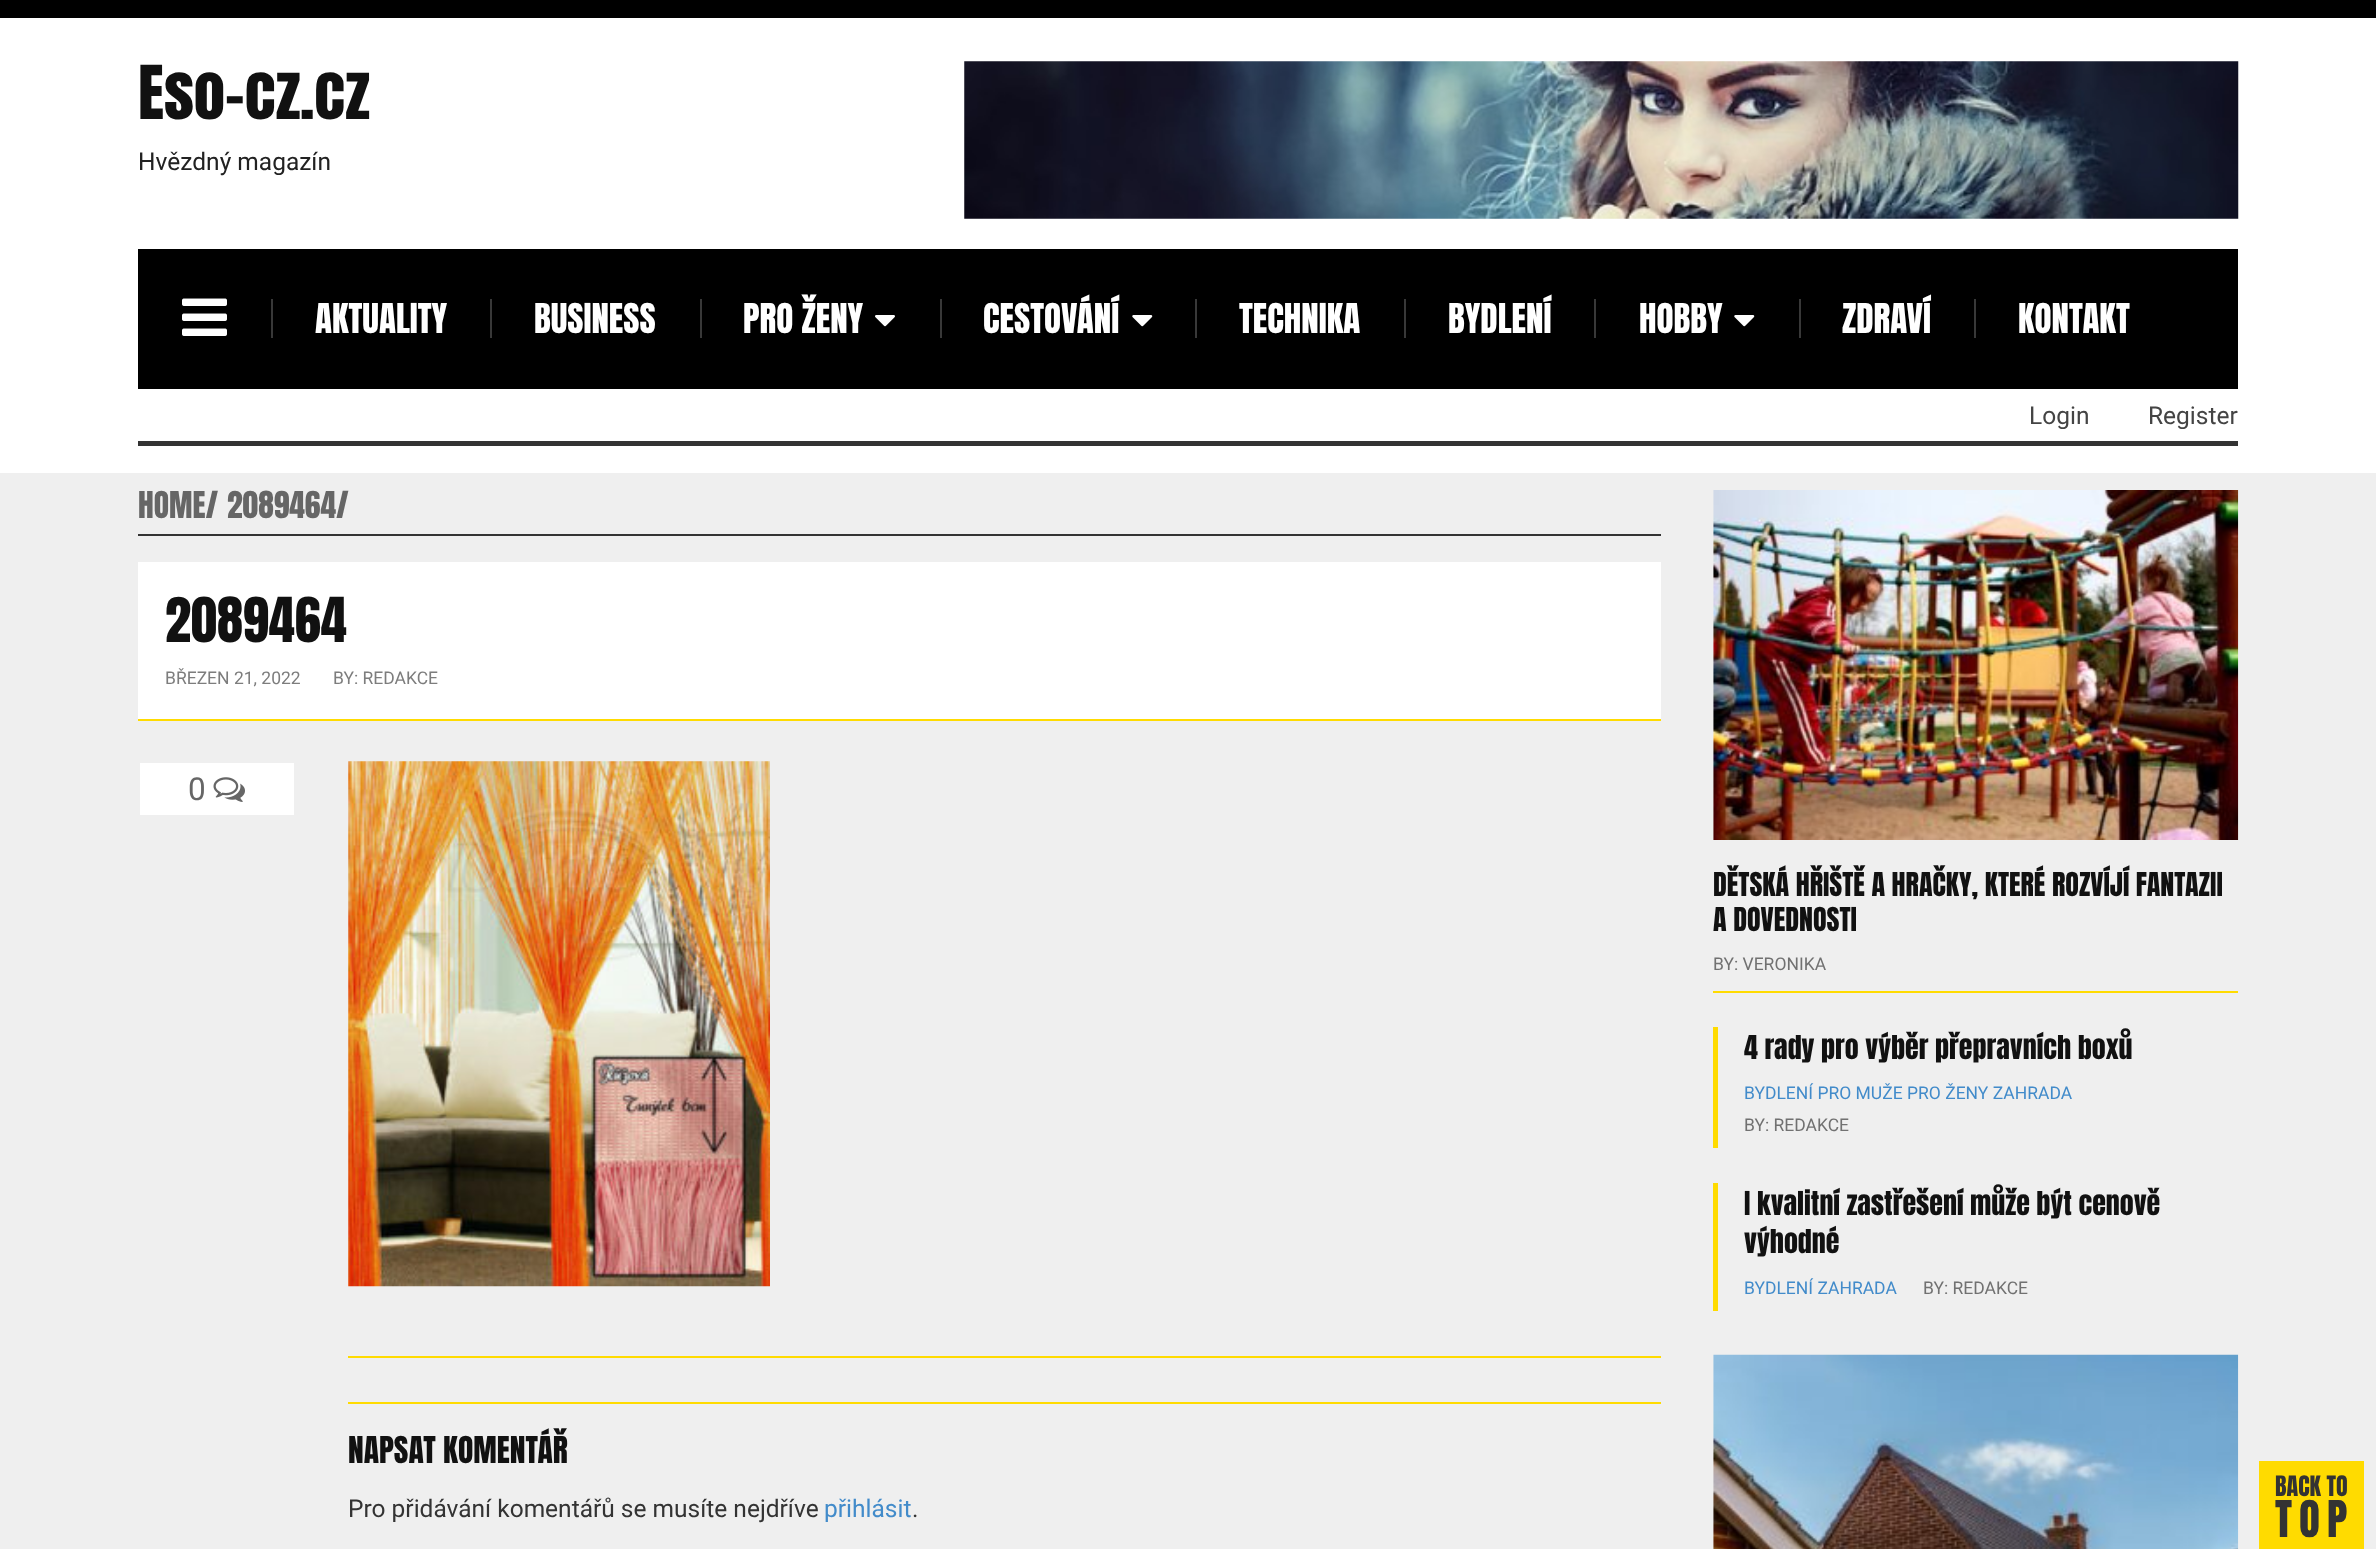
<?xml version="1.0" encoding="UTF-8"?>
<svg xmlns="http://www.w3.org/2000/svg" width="2376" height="1549">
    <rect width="100%" height="100%" fill="#FFFFFF"/>
    <rect x="0" y="0" width="2376" height="18" fill="#000000"/>
    <text x="138" y="119" font-family="Anton" font-size="63" fill="#111111">Eso-cz.cz</text>
    <text x="138" y="170" font-family="Roboto" font-size="24.5" fill="#222222">Hvězdný magazín</text>
    <image x="964" y="61" width="1275" height="158" href="img_01.png"/>
    <rect x="138" y="249" width="2100" height="140" fill="#000000"/>
    <image x="182" y="298" width="45" height="38" href="img_02.png"/>
    <rect x="271" y="299" width="2" height="39" fill="#383838"/>
    <text x="315" y="333" font-family="Anton" font-size="35" fill="#FFFFFF">AKTUALITY</text>
    <rect x="490" y="299" width="2" height="39" fill="#383838"/>
    <text x="534" y="333" font-family="Anton" font-size="35" fill="#FFFFFF">BUSINESS</text>
    <rect x="700" y="299" width="2" height="39" fill="#383838"/>
    <text x="743" y="333" font-family="Anton" font-size="35" fill="#FFFFFF">PRO ŽENY</text>
    <image x="875" y="315" width="20" height="12" href="img_03.png"/>
    <rect x="940" y="299" width="2" height="39" fill="#383838"/>
    <text x="983" y="333" font-family="Anton" font-size="35" fill="#FFFFFF">CESTOVÁNÍ</text>
    <image x="1132" y="315" width="21" height="12" href="img_04.png"/>
    <rect x="1195" y="299" width="2" height="39" fill="#383838"/>
    <text x="1239" y="333" font-family="Anton" font-size="35" fill="#FFFFFF">TECHNIKA</text>
    <rect x="1404" y="299" width="2" height="39" fill="#383838"/>
    <text x="1448" y="333" font-family="Anton" font-size="35" fill="#FFFFFF">BYDLENÍ</text>
    <rect x="1594" y="299" width="2" height="39" fill="#383838"/>
    <text x="1639" y="333" font-family="Anton" font-size="35" fill="#FFFFFF">HOBBY</text>
    <image x="1734" y="315" width="21" height="12" href="img_04.png"/>
    <rect x="1799" y="299" width="2" height="39" fill="#383838"/>
    <text x="1842" y="333" font-family="Anton" font-size="35" fill="#FFFFFF">ZDRAVÍ</text>
    <rect x="1974" y="299" width="2" height="39" fill="#383838"/>
    <text x="2018" y="333" font-family="Anton" font-size="35" fill="#FFFFFF">KONTAKT</text>
    <rect x="138" y="441" width="2100" height="5" fill="#333333"/>
    <text x="2029" y="424" font-family="Roboto" font-size="24.5" fill="#444444">Login</text>
    <text x="2148" y="424" font-family="Roboto" font-size="24.5" fill="#444444">Register</text>
    <rect x="0" y="473" width="2376" height="1076" fill="#EFEFEF"/>
    <rect x="138" y="534" width="1523" height="2" fill="#333333"/>
    <text x="138" y="518" font-family="Anton" font-size="31.5" fill="#666666">HOME/</text>
    <text x="227" y="518" font-family="Anton" font-size="31.5" fill="#666666">2089464/</text>
    <rect x="138" y="562" width="1523" height="157" fill="#FFFFFF"/>
    <rect x="138" y="719" width="1523" height="2" fill="#FFDB00"/>
    <text x="165" y="642" font-family="Anton" font-size="52.5" fill="#111111">2089464</text>
    <text x="165" y="684" font-family="Roboto" font-size="17.5" fill="#7D7D7D">BŘEZEN 21, 2022</text>
    <text x="333" y="684" font-family="Roboto" font-size="17.5" fill="#7D7D7D">BY: REDAKCE</text>
    <rect x="140" y="763" width="154" height="52" fill="#FFFFFF"/>
    <text x="188" y="800" font-family="Roboto" font-size="31.5" fill="#666666">0</text>
    <image x="213" y="777" width="32" height="25" href="img_05.png"/>
    <rect x="348" y="1356" width="1313" height="2" fill="#FFDB00"/>
    <image x="348" y="761" width="422" height="526" href="img_06.png"/>
    <rect x="348" y="1402" width="1313" height="2" fill="#FFDB00"/>
    <text x="348" y="1463" font-family="Anton" font-size="31.5" fill="#111111">NAPSAT KOMENTÁŘ</text>
    <text x="348" y="1517" font-family="Roboto" font-size="24.5" fill="#333333">Pro přidávání komentářů se musíte nejdříve</text>
    <text x="824" y="1517" font-family="Roboto" font-size="24.5" fill="#428BCA">přihlásit</text>
    <text x="912" y="1517" font-family="Roboto" font-size="24.5" fill="#333333">.</text>
    <rect x="1713" y="991" width="525" height="2" fill="#FFDB00"/>
    <image x="1713" y="490" width="526" height="350" href="img_07.png"/>
    <text font-family="Anton" font-size="28" fill="#111111">
        <tspan x="1713" y="896">DĚTSKÁ HŘIŠTĚ A HRAČKY, KTERÉ ROZVÍJÍ FANTAZII</tspan>
        <tspan x="1713" y="931">A DOVEDNOSTI</tspan>
    </text>
    <text x="1713" y="970" font-family="Roboto" font-size="17.5" fill="#717171">BY: VERONIKA</text>
    <rect x="1713" y="1027" width="5" height="121" fill="#FFDB00"/>
    <text x="1744" y="1059" font-family="Anton" font-size="28" fill="#111111">4 rady pro výběr přepravních boxů</text>
    <text x="1744" y="1099" font-family="Roboto" font-size="17.5" fill="#428BCA">BYDLENÍ PRO MUŽE PRO ŽENY ZAHRADA</text>
    <text x="1744" y="1131" font-family="Roboto" font-size="17.5" fill="#717171">BY: REDAKCE</text>
    <rect x="1713" y="1183" width="5" height="128" fill="#FFDB00"/>
    <text font-family="Anton" font-size="28" fill="#111111">
        <tspan x="1744" y="1215">I kvalitní zastřešení může být cenově</tspan>
        <tspan x="1744" y="1253">výhodné</tspan>
    </text>
    <text x="1744" y="1294" font-family="Roboto" font-size="17.5" fill="#428BCA">BYDLENÍ ZAHRADA</text>
    <text x="1923" y="1294" font-family="Roboto" font-size="17.5" fill="#717171">BY: REDAKCE</text>
    <image x="1713" y="1354" width="526" height="195" href="img_08.png"/>
    <rect x="2259" y="1461" width="105" height="88" fill="#FFDB00"/>
    <text x="2275" y="1496" font-family="Anton" font-size="24" fill="#333333">BACK TO</text>
    <text x="2275" y="1537" font-family="Anton" font-size="43" letter-spacing="7" fill="#333333">TOP</text>
</svg>
